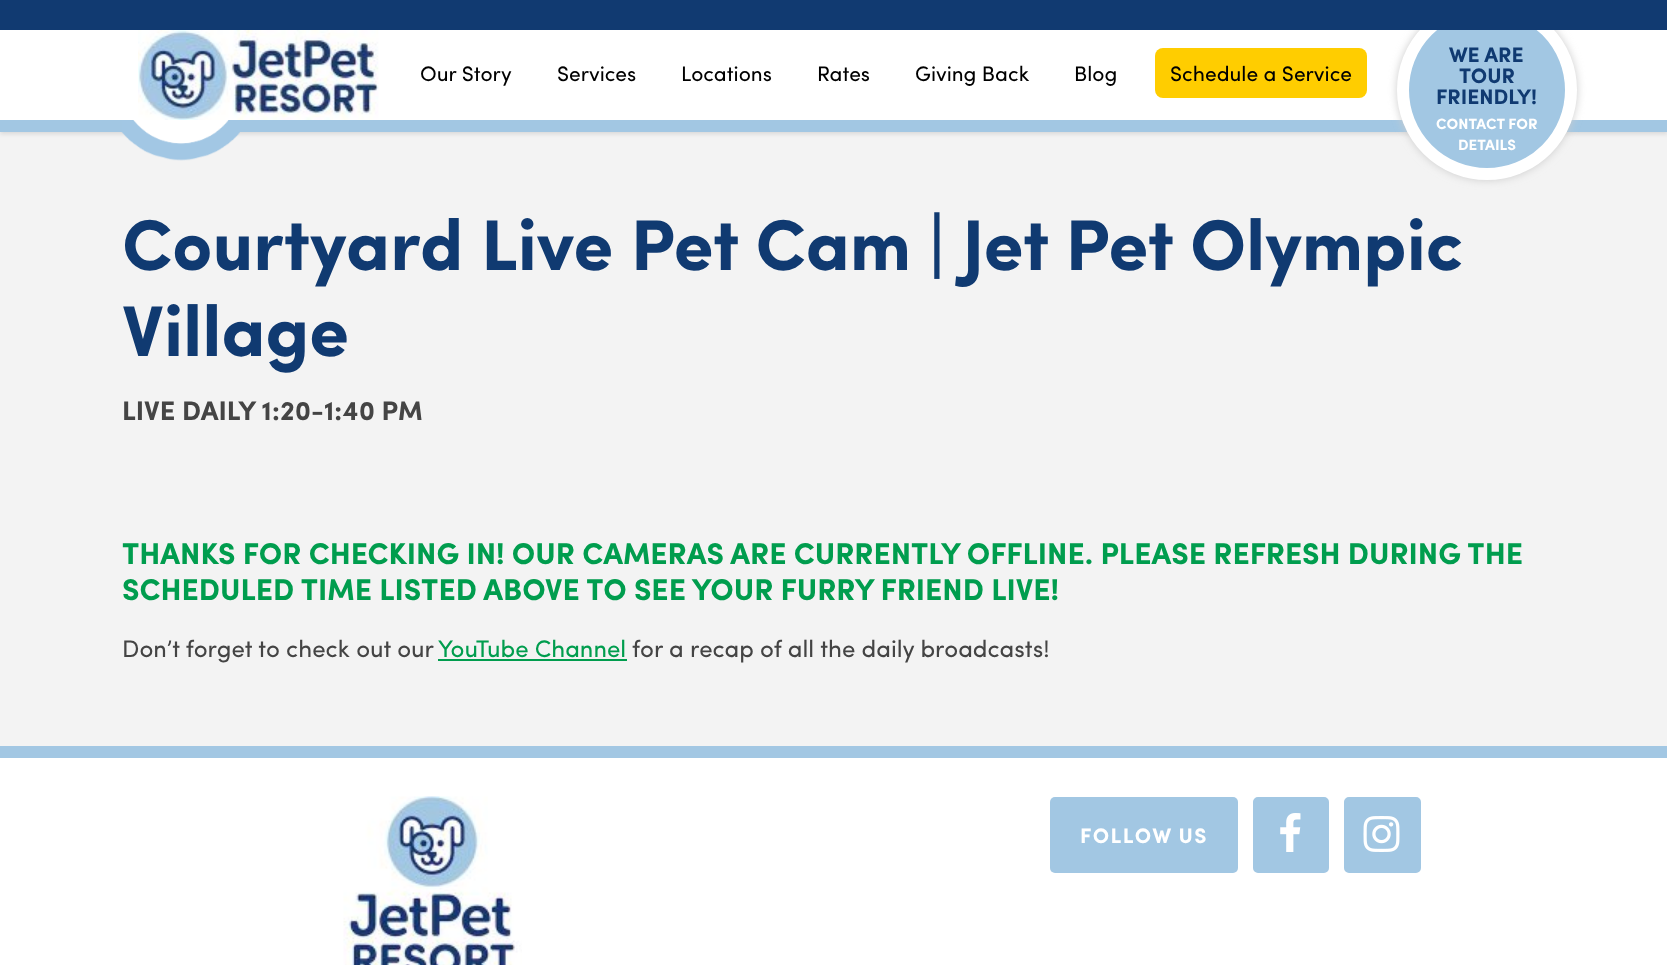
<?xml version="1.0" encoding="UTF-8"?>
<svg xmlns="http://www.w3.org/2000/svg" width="1667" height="965">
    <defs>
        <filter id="blur1" x="-50%" y="-200%" width="200%" height="500%"><feGaussianBlur stdDeviation="2"/></filter>
        <filter id="blur2" x="-50%" y="-200%" width="200%" height="500%"><feGaussianBlur stdDeviation="4.5"/></filter>
    </defs>
    <rect width="100%" height="100%" fill="#F3F3F3"/>
    <rect x="0" y="32" width="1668" height="102" fill="#000000" fill-opacity="0.11" filter="url(#blur1)"/>
    <rect x="0" y="30" width="1667" height="90" fill="#FFFFFF"/>
    <rect x="0" y="120" width="1667" height="12" fill="#A2C7E3"/>
    <rect x="1397" y="0" width="180" height="180" rx="90" fill="#CCCCCC" filter="url(#blur2)"/>
    <circle cx="1487" cy="90" r="84" fill="#A2C7E3" stroke="#FFFFFF" stroke-width="12"/>
    <rect x="0" y="0" width="1667" height="30" fill="#113A71"/>
    <image x="138" y="30" width="241" height="90" href="img_01.png"/>
    <text x="420" y="81" font-family="Sofia" font-size="21" fill="#000000">Our Story</text>
    <text x="557" y="81" font-family="Sofia" font-size="21" fill="#000000">Services</text>
    <text x="681" y="81" font-family="Sofia" font-size="21" fill="#000000">Locations</text>
    <text x="817" y="81" font-family="Sofia" font-size="21" fill="#000000">Rates</text>
    <text x="915" y="81" font-family="Sofia" font-size="21" fill="#000000">Giving Back</text>
    <text x="1074" y="81" font-family="Sofia" font-size="21" fill="#000000">Blog</text>
    <rect x="1155" y="48" width="212" height="50" rx="8" fill="#FFCD00"/>
    <text x="1170" y="81" font-family="Sofia" font-size="21" fill="#000000">Schedule a Service</text>
    <text x="1449" y="62" font-family="Sofia" font-size="21" font-weight="700" fill="#103A71">WE ARE</text>
    <text x="1459" y="83" font-family="Sofia" font-size="21" font-weight="700" fill="#103A71">TOUR</text>
    <text x="1436" y="104" font-family="Sofia" font-size="21" font-weight="700" fill="#103A71">FRIENDLY!</text>
    <text x="1436" y="129" font-family="Sofia" font-size="15" font-weight="700" fill="#FFFFFF">CONTACT FOR</text>
    <text x="1458" y="150" font-family="Sofia" font-size="15" font-weight="700" fill="#FFFFFF">DETAILS</text>
    <image x="121" y="120" width="119" height="41" href="img_02.png"/>
    <text font-family="Sofia" font-size="72" font-weight="700" fill="#103A71">
        <tspan x="122" y="270">Courtyard Live Pet Cam | Jet Pet Olympic</tspan>
        <tspan x="122" y="356">Village</tspan>
    </text>
    <text x="122" y="420" font-family="Sofia" font-size="27" font-weight="700" fill="#444444">LIVE DAILY 1:20-1:40 PM</text>
    <text font-family="Sofia" font-size="30" font-weight="700" fill="#009D4E">
        <tspan x="122" y="564">THANKS FOR CHECKING IN! OUR CAMERAS ARE CURRENTLY OFFLINE. PLEASE REFRESH DURING THE</tspan>
        <tspan x="122" y="600">SCHEDULED TIME LISTED ABOVE TO SEE YOUR FURRY FRIEND LIVE!</tspan>
    </text>
    <text x="122" y="657" font-family="Sofia" font-size="24" fill="#444444">Don’t forget to check out our</text>
    <text x="438" y="657" font-family="Sofia" font-size="24" fill="#009D4E">YouTube Channel</text>
    <rect x="438" y="659" width="189" height="2" fill="#009D4E"/>
    <text x="632" y="657" font-family="Sofia" font-size="24" fill="#444444">for a recap of all the daily broadcasts!</text>
    <rect x="0" y="746" width="1667" height="12" fill="#A2C7E3"/>
    <rect x="0" y="758" width="1667" height="207" fill="#FFFFFF"/>
    <image x="343" y="796" width="179" height="169" href="img_03.png"/>
    <rect x="1050" y="797" width="188" height="76" rx="5" fill="#A2C7E3"/>
    <text x="1080" y="843" font-family="Sofia" font-size="21" font-weight="700" letter-spacing="1.5" fill="#FFFFFF">FOLLOW US</text>
    <rect x="1255.5" y="799.5" width="71" height="71" rx="2.5" fill="#A2C7E3" stroke="#A2C7E3" stroke-width="5"/>
    <image x="1280" y="813" width="21" height="39" href="img_04.png"/>
    <rect x="1346.5" y="799.5" width="72" height="71" rx="2.5" fill="#A2C7E3" stroke="#A2C7E3" stroke-width="5"/>
    <image x="1363" y="816" width="37" height="36" href="img_05.png"/>
</svg>
